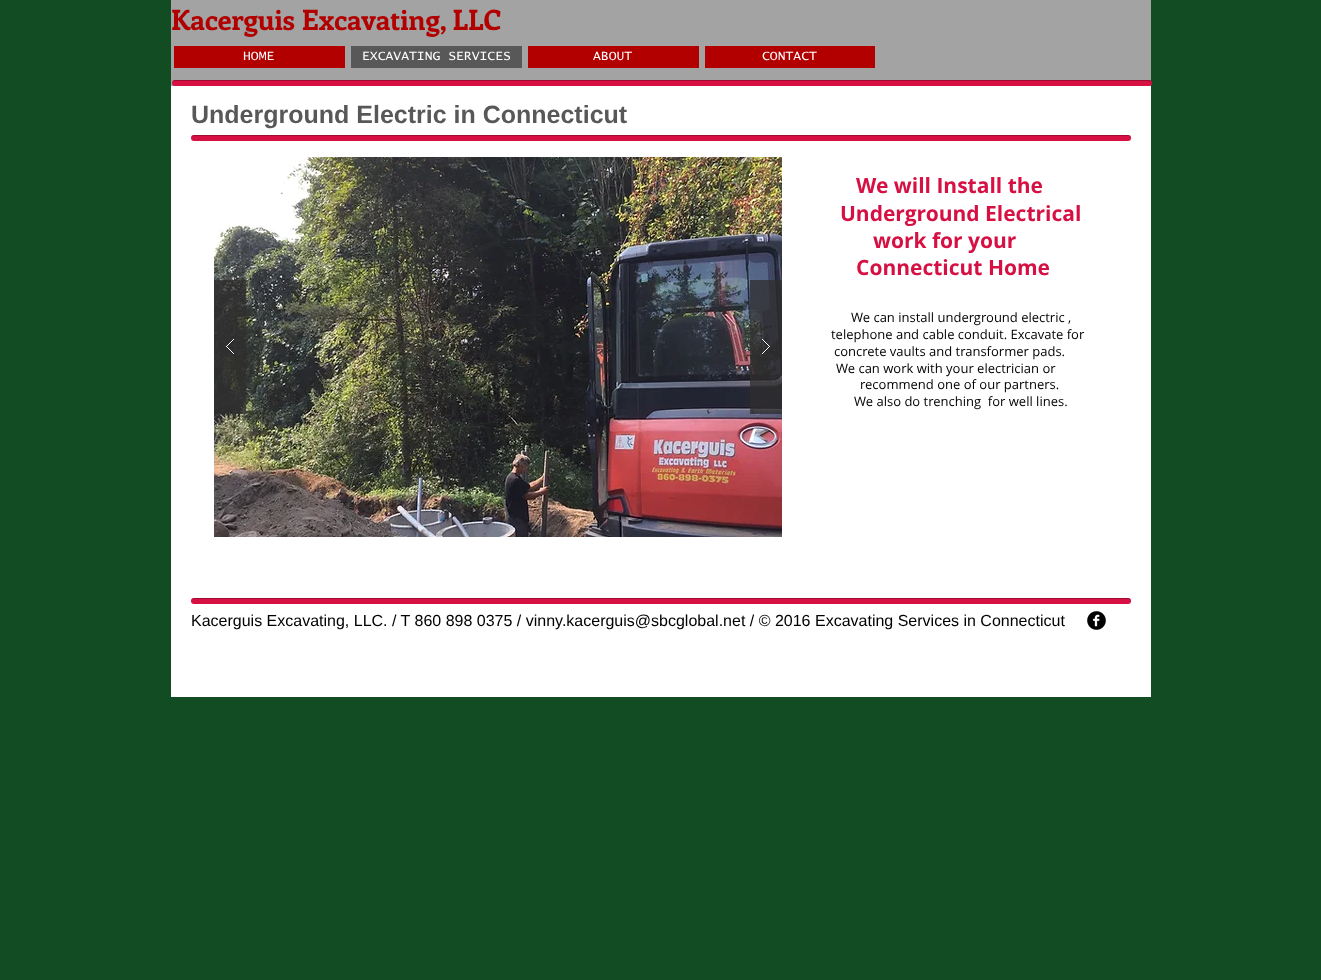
<?xml version="1.0" encoding="UTF-8"?>
<svg xmlns="http://www.w3.org/2000/svg" width="1321" height="980">
    <rect width="100%" height="100%" fill="#114C22"/>
    <rect x="171" y="0" width="980" height="86" fill="#A3A3A3"/>
    <text x="171" y="30" font-family="Enriqueta" font-size="28" font-weight="700" fill="#B20000">Kacerguis Excavating, LLC</text>
    <rect x="174" y="46" width="171" height="22" fill="#B20000"/>
    <text x="243" y="60" font-family="'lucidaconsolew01'" font-size="13" fill="#FFFFFF">HOME</text>
    <rect x="351" y="46" width="171" height="22" fill="#585858"/>
    <text x="362" y="60" font-family="'lucidaconsolew01'" font-size="13" fill="#FFFFFF">EXCAVATING SERVICES</text>
    <rect x="528" y="46" width="171" height="22" fill="#B20000"/>
    <text x="593" y="60" font-family="'lucidaconsolew01'" font-size="13" fill="#FFFFFF">ABOUT</text>
    <rect x="705" y="46" width="170" height="22" fill="#B20000"/>
    <text x="762" y="60" font-family="'lucidaconsolew01'" font-size="13" fill="#FFFFFF">CONTACT</text>
    <rect x="172" y="80" width="980" height="6" rx="3" fill="#D61043"/>
    <path d="M 175 81 H 1149 C 1150 81 1152 82 1152 83 C 1152 82 1151 80 1149 80 H 174 L 173 81 L 172 83 C 172 82 173 81 175 81 Z" fill="#000000" fill-opacity="0.25"/>
    <rect x="171" y="86" width="980" height="611" fill="#FFFFFF"/>
    <text x="191" y="123" font-family="Liberation Sans" font-size="25" font-weight="700" fill="#585858">Underground Electric in Connecticut</text>
    <rect x="191" y="135" width="940" height="6" rx="3" fill="#D61043"/>
    <path d="M 194 136 H 1129 C 1130 136 1131 138 1131 139 C 1132 137 1130 135 1128 135 H 194 C 192 135 191 137 191 138 C 191 137 192 136 194 136 Z" fill="#000000" fill-opacity="0.25"/>
    <image x="214" y="157" width="568" height="380" href="img_01.png"/>
    <text x="755" y="177" font-family="Liberation Sans" font-size="12" fill="#977E4D">1/5</text>
    <rect x="214" y="280" width="32" height="134" fill="#2F2E2E" fill-opacity="0.75"/>
    <image x="226" y="339" width="8" height="16" href="img_02.png"/>
    <rect x="750" y="280" width="32" height="134" fill="#2F2E2E" fill-opacity="0.75"/>
    <image x="762" y="339" width="8" height="16" href="img_03.png"/>
    <text x="856" y="193" font-family="Open Sans" font-size="21" font-weight="700" fill="#D61043">We will Install the</text>
    <text x="840" y="221" font-family="Open Sans" font-size="21" font-weight="700" fill="#D61043">Underground Electrical</text>
    <text x="873" y="248" font-family="Open Sans" font-size="21" font-weight="700" fill="#D61043">work for your</text>
    <text x="856" y="275" font-family="Open Sans" font-size="21" font-weight="700" fill="#D61043">Connecticut Home</text>
    <text x="851" y="322" font-family="Open Sans" font-size="13" fill="#000000">We can install underground electric ,</text>
    <text x="831" y="339" font-family="Open Sans" font-size="13" fill="#000000">telephone and cable conduit. Excavate for</text>
    <text x="834" y="356" font-family="Open Sans" font-size="13" fill="#000000">concrete vaults and transformer pads.</text>
    <text x="836" y="373" font-family="Open Sans" font-size="13" fill="#000000">We can work with your electrician or</text>
    <text x="860" y="389" font-family="Open Sans" font-size="13" fill="#000000">recommend one of our partners.</text>
    <text x="854" y="406" font-family="Open Sans" font-size="13" fill="#000000" xml:space="preserve">We also do trenching  for well lines.</text>
    <rect x="191" y="598" width="940" height="6" rx="3" fill="#D61043"/>
    <path d="M 194 599 H 1129 C 1130 599 1131 601 1131 602 C 1132 600 1130 598 1128 598 H 194 C 192 598 191 600 191 601 C 191 600 192 599 194 599 Z" fill="#000000" fill-opacity="0.25"/>
    <text x="191" y="626" font-family="Liberation Sans" font-size="16" fill="#000000">Kacerguis Excavating, LLC. / T 860 898 0375 / vinny.kacerguis@sbcglobal.net / © 2016 Excavating Services in Connecticut</text>
    <image x="1087" y="611" width="19" height="19" href="img_04.png"/>
</svg>
